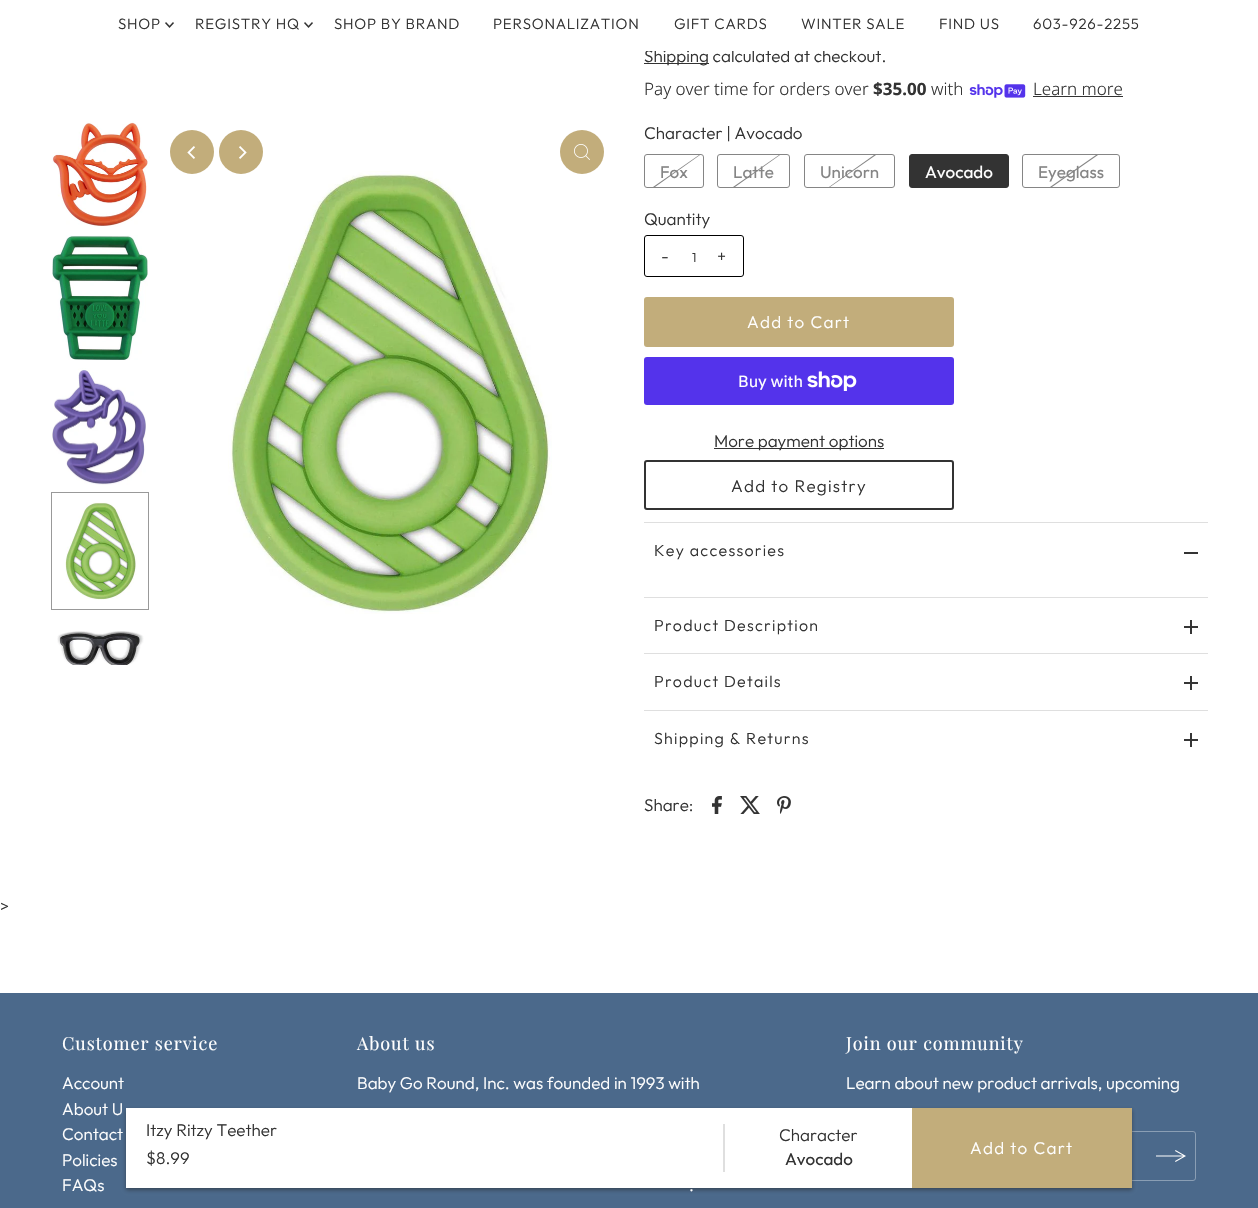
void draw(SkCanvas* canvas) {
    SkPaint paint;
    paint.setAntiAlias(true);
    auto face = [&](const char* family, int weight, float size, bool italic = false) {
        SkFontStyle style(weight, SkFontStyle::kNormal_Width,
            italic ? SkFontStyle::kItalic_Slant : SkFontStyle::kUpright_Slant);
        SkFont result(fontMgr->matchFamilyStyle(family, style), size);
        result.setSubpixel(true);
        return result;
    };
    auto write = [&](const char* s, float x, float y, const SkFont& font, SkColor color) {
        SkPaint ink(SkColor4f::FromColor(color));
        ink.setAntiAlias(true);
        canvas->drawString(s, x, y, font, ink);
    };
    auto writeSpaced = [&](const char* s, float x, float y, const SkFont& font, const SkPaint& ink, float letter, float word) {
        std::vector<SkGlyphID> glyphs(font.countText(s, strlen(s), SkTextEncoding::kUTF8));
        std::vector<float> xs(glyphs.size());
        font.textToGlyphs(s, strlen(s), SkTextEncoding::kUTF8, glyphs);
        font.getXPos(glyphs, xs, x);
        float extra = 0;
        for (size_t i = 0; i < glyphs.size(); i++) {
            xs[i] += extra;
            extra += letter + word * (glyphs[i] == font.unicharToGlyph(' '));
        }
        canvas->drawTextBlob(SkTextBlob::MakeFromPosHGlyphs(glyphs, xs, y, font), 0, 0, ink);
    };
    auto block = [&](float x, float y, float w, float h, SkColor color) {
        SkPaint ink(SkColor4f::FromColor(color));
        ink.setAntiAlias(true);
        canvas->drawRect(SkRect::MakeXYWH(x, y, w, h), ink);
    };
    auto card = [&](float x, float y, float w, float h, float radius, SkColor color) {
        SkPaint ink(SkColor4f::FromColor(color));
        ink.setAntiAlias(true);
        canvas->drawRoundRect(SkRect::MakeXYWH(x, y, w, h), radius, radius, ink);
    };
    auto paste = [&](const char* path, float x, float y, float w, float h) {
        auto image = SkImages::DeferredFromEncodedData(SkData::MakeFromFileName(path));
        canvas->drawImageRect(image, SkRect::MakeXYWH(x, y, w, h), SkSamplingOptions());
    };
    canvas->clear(SK_ColorWHITE);
    block(644, 63, 65, 1, SkColorSetRGB(51, 51, 51));
    auto kFont1 = face("Outfit", 300, 17);
    write("Shipping calculated at checkout.", 644, 62, kFont1, SkColorSetRGB(51, 51, 51));
    block(646, 49, 233, 2, SK_ColorWHITE);
    auto kFont2 = face("Outfit", 300, 15);
    paint.setColor(SkColorSetRGB(51, 51, 51));
    writeSpaced("SHOP", 118, 29, kFont2, paint, 0.75f, 0);
    paste("pic1.png", 165, 22, 9, 6);
    writeSpaced("REGISTRY HQ", 195, 29, kFont2, paint, 0.75f, 0);
    paste("pic1.png", 304, 22, 9, 6);
    writeSpaced("SHOP BY BRAND", 334, 29, kFont2, paint, 0.75f, 0);
    writeSpaced("PERSONALIZATION", 493, 29, kFont2, paint, 0.75f, 0);
    writeSpaced("GIFT CARDS", 674, 29, kFont2, paint, 0.75f, 0);
    writeSpaced("WINTER SALE", 801, 29, kFont2, paint, 0.75f, 0);
    writeSpaced("FIND US", 939, 29, kFont2, paint, 0.75f, 0);
    writeSpaced("603-926-2255", 1033, 29, kFont2, paint, 0.75f, 0);
    write(">", 0, 912, kFont1, SkColorSetRGB(51, 51, 51));
    paste("pic2.png", 52, 121, 98, 106);
    paste("pic3.png", 52, 235, 96, 125);
    paste("pic4.png", 52, 368, 94, 117);
    paste("pic5.png", 65, 502, 72, 98);
    paint.setStyle(SkPaint::kStroke_Style);
    paint.setStrokeWidth(1);
    paint.setColor(SkColorSetRGB(153, 153, 153));
    canvas->drawRect(SkRect::MakeXYWH(51.5f, 492.5f, 97, 117), paint);
    paste("pic6.png", 57, 631, 87, 34);
    paint.setStyle(SkPaint::kFill_Style);
    paint.setColor(SkColorSetRGB(194, 173, 123));
    canvas->drawCircle(192, 152, 22, paint);
    paste("pic7.png", 187, 146, 8, 13);
    paste("pic10.png", 228, 171, 324, 443);
    canvas->drawCircle(241, 152, 22, paint);
    paste("pic8.png", 239, 146, 8, 13);
    canvas->drawCircle(582, 152, 22, paint);
    paste("pic9.png", 574, 144, 16, 16);
    auto kFont3 = face("Noto Sans", 300, 17);
    write("Pay over time for orders over", 644, 95, kFont3, SkColorSetRGB(51, 51, 51));
    auto kFont4 = face("Noto Sans", 700, 17);
    write("$35.00", 873, 95, kFont4, SkColorSetRGB(51, 51, 51));
    write("with", 931, 95, kFont3, SkColorSetRGB(51, 51, 51));
    paste("pic11.png", 969, 84, 57, 14);
    write("Learn more", 1033, 95, kFont3, SkColorSetRGB(51, 51, 51));
    block(1033, 96, 90, 1, SkColorSetRGB(51, 51, 51));
    write("Character | Avocado", 644, 139, kFont1, SkColorSetRGB(51, 51, 51));
    paint.setStyle(SkPaint::kStroke_Style);
    paint.setColor(SkColorSetRGB(133, 133, 133));
    canvas->drawRoundRect(SkRect::MakeXYWH(644.5f, 154.5f, 59, 33), 2.5f, 2.5f, paint);
    paint.setStyle(SkPaint::kFill_Style);
    canvas->drawPath(SkPathBuilder().moveTo(653, 187).lineTo(699, 155).lineTo(700, 155).lineTo(655, 187).close().detach(), paint);
    auto kFont5 = face("Outfit", 400, 17);
    write("Fox", 660, 178, kFont5, SkColorSetRGB(133, 133, 133));
    paint.setStyle(SkPaint::kStroke_Style);
    canvas->drawRoundRect(SkRect::MakeXYWH(717.5f, 154.5f, 72, 33), 2.5f, 2.5f, paint);
    paint.setStyle(SkPaint::kFill_Style);
    canvas->drawPath(SkPathBuilder().moveTo(733, 187).lineTo(779, 155).lineTo(780, 155).lineTo(735, 187).close().detach(), paint);
    write("Latte", 733, 178, kFont5, SkColorSetRGB(133, 133, 133));
    paint.setStyle(SkPaint::kStroke_Style);
    canvas->drawRoundRect(SkRect::MakeXYWH(804.5f, 154.5f, 90, 33), 2.5f, 2.5f, paint);
    paint.setStyle(SkPaint::kFill_Style);
    canvas->drawPath(SkPathBuilder().moveTo(829, 187).lineTo(874, 155).lineTo(876, 155).lineTo(830, 187).close().detach(), paint);
    write("Unicorn", 820, 178, kFont5, SkColorSetRGB(133, 133, 133));
    paint.setColor(SkColorSetRGB(51, 51, 51));
    canvas->drawRoundRect(SkRect::MakeXYWH(909.5f, 154.5f, 99, 33), 2.5f, 2.5f, paint);
    paint.setStyle(SkPaint::kStroke_Style);
    canvas->drawRoundRect(SkRect::MakeXYWH(909.5f, 154.5f, 99, 33), 2.5f, 2.5f, paint);
    write("Avocado", 925, 178, kFont5, SK_ColorWHITE);
    paint.setColor(SkColorSetRGB(133, 133, 133));
    canvas->drawRoundRect(SkRect::MakeXYWH(1022.5f, 154.5f, 97, 33), 2.5f, 2.5f, paint);
    paint.setStyle(SkPaint::kFill_Style);
    canvas->drawPath(SkPathBuilder().moveTo(1050, 187).lineTo(1096, 155).lineTo(1098, 155).lineTo(1052, 187).close().detach(), paint);
    write("Eyeglass", 1038, 178, kFont5, SkColorSetRGB(133, 133, 133));
    write("Quantity", 644, 225, kFont1, SkColorSetRGB(51, 51, 51));
    paint.setStyle(SkPaint::kStroke_Style);
    paint.setColor(SK_ColorBLACK);
    canvas->drawRoundRect(SkRect::MakeXYWH(644.5f, 235.5f, 99, 41), 2.5f, 2.5f, paint);
    paint.setStyle(SkPaint::kFill_Style);
    paint.setColor(SkColorSetRGB(51, 51, 51));
    writeSpaced("-", 661, 262, kFont1, paint, 1.25f, 0);
    auto kFont6 = face("Outfit", 300, 13);
    write("1", 692, 262, kFont6, SkColorSetRGB(51, 51, 51));
    writeSpaced("+", 717, 262, kFont1, paint, 1.25f, 0);
    card(644, 297, 310, 50, 3, SkColorSetRGB(194, 173, 123));
    paint.setColor(SK_ColorWHITE);
    writeSpaced("Add to Cart", 747, 328, kFont1, paint, 1.25f, 0);
    card(644, 357, 310, 48, 3, SkColorSetRGB(84, 51, 235));
    auto kFont7 = face("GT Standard", 400, 16);
    write("Buy with", 738, 387, kFont7, SK_ColorWHITE);
    paste("pic12.png", 807, 371, 50, 20);
    block(714, 448, 170, 1, SkColorSetRGB(51, 51, 51));
    write("More payment options", 714, 447, kFont1, SkColorSetRGB(51, 51, 51));
    paint.setStyle(SkPaint::kStroke_Style);
    paint.setStrokeWidth(2);
    paint.setColor(SkColorSetRGB(51, 51, 51));
    canvas->drawRoundRect(SkRect::MakeXYWH(645, 461, 308, 48), 2, 2, paint);
    paint.setStyle(SkPaint::kFill_Style);
    writeSpaced("Add to Registry", 731, 492, kFont1, paint, 1.25f, 0);
    block(644, 522, 564, 1, SkColorSetRGB(223, 223, 223));
    auto kFont8 = face("Outfit", 300, 16);
    writeSpaced("Key accessories", 654, 556, kFont8, paint, 1.25f, 0);
    block(1184, 552, 14, 2, SkColorSetRGB(51, 51, 51));
    block(644, 597, 564, 1, SkColorSetRGB(223, 223, 223));
    writeSpaced("Product Description", 654, 631, kFont8, paint, 1.25f, 0);
    paste("pic13.png", 1184, 620, 14, 14);
    block(644, 653, 564, 1, SkColorSetRGB(223, 223, 223));
    writeSpaced("Product Details", 654, 687, kFont8, paint, 1.25f, 0);
    paste("pic13.png", 1184, 676, 14, 14);
    block(644, 710, 564, 1, SkColorSetRGB(223, 223, 223));
    writeSpaced("Shipping & Returns", 654, 744, kFont8, paint, 1.25f, 0);
    paste("pic13.png", 1184, 733, 14, 14);
    write("Share:", 644, 811, kFont1, SkColorSetRGB(51, 51, 51));
    paste("pic14.png", 712, 796, 10, 18);
    paste("pic15.png", 740, 796, 20, 18);
    paste("pic16.png", 777, 796, 14, 18);
    block(0, 993, 1258, 215, SkColorSetRGB(75, 105, 139));
    paint.setStyle(SkPaint::kStroke_Style);
    paint.setStrokeWidth(1);
    paint.setColor(SkColorSetRGB(138, 158, 180));
    canvas->drawRoundRect(SkRect::MakeXYWH(846.5f, 1131.5f, 349, 49), 2.5f, 2.5f, paint);
    paint.setStyle(SkPaint::kFill_Style);
    paint.setColor(SkColorSetARGB(128, 34, 34, 34));
    paint.setMaskFilter(SkMaskFilter::MakeBlur(kNormal_SkBlurStyle, 2));
    canvas->drawRect(SkRect::MakeXYWH(126, 1110, 1006, 80), paint);
    paint.setMaskFilter(nullptr);
    block(126, 1108, 786, 80, SK_ColorWHITE);
    write("Itzy Ritzy Teether", 146, 1136, kFont1, SkColorSetRGB(51, 51, 51));
    write("$8.99", 146, 1164, kFont1, SkColorSetRGB(51, 51, 51));
    block(723, 1124, 2, 48, SkColorSetRGB(223, 223, 223));
    write("Character", 779, 1141, kFont1, SkColorSetRGB(51, 51, 51));
    write("Avocado", 785, 1165, kFont5, SkColorSetRGB(51, 51, 51));
    block(912, 1108, 220, 80, SkColorSetRGB(194, 173, 123));
    paint.setColor(SK_ColorWHITE);
    writeSpaced("Add to Cart", 970, 1154, kFont1, paint, 1.25f, 0);
    auto kFont9 = face("Playfair Display", 400, 18);
    writeSpaced("Customer service", 62, 1050, kFont9, paint, 0.9f, 0);
    write("Account", 62, 1089, kFont1, SK_ColorWHITE);
    write("About U", 62, 1115, kFont1, SK_ColorWHITE);
    write("Contact", 62, 1140, kFont1, SK_ColorWHITE);
    write("Policies", 62, 1166, kFont1, SK_ColorWHITE);
    write("FAQs", 62, 1191, kFont1, SK_ColorWHITE);
    writeSpaced("About us", 357, 1050, kFont9, paint, 0.9f, 0);
    write("Baby Go Round, Inc. was founded in 1993 with", 357, 1089, kFont1, SK_ColorWHITE);
    write(".", 689, 1191, kFont1, SK_ColorWHITE);
    writeSpaced("Join our community", 846, 1050, kFont9, paint, 0.9f, 0);
    write("Learn about new product arrivals, upcoming", 846, 1089, kFont1, SK_ColorWHITE);
    canvas->drawPath(SkPathBuilder().moveTo(1175.5f, 1150).lineTo(1186, 1156).lineTo(1175.5f, 1162).lineTo(1175, 1161).lineTo(1183, 1156.5f).lineTo(1156, 1156.5f).lineTo(1156, 1155.5f).lineTo(1183, 1155.5f).lineTo(1175, 1151).close().detach(), paint);
}
